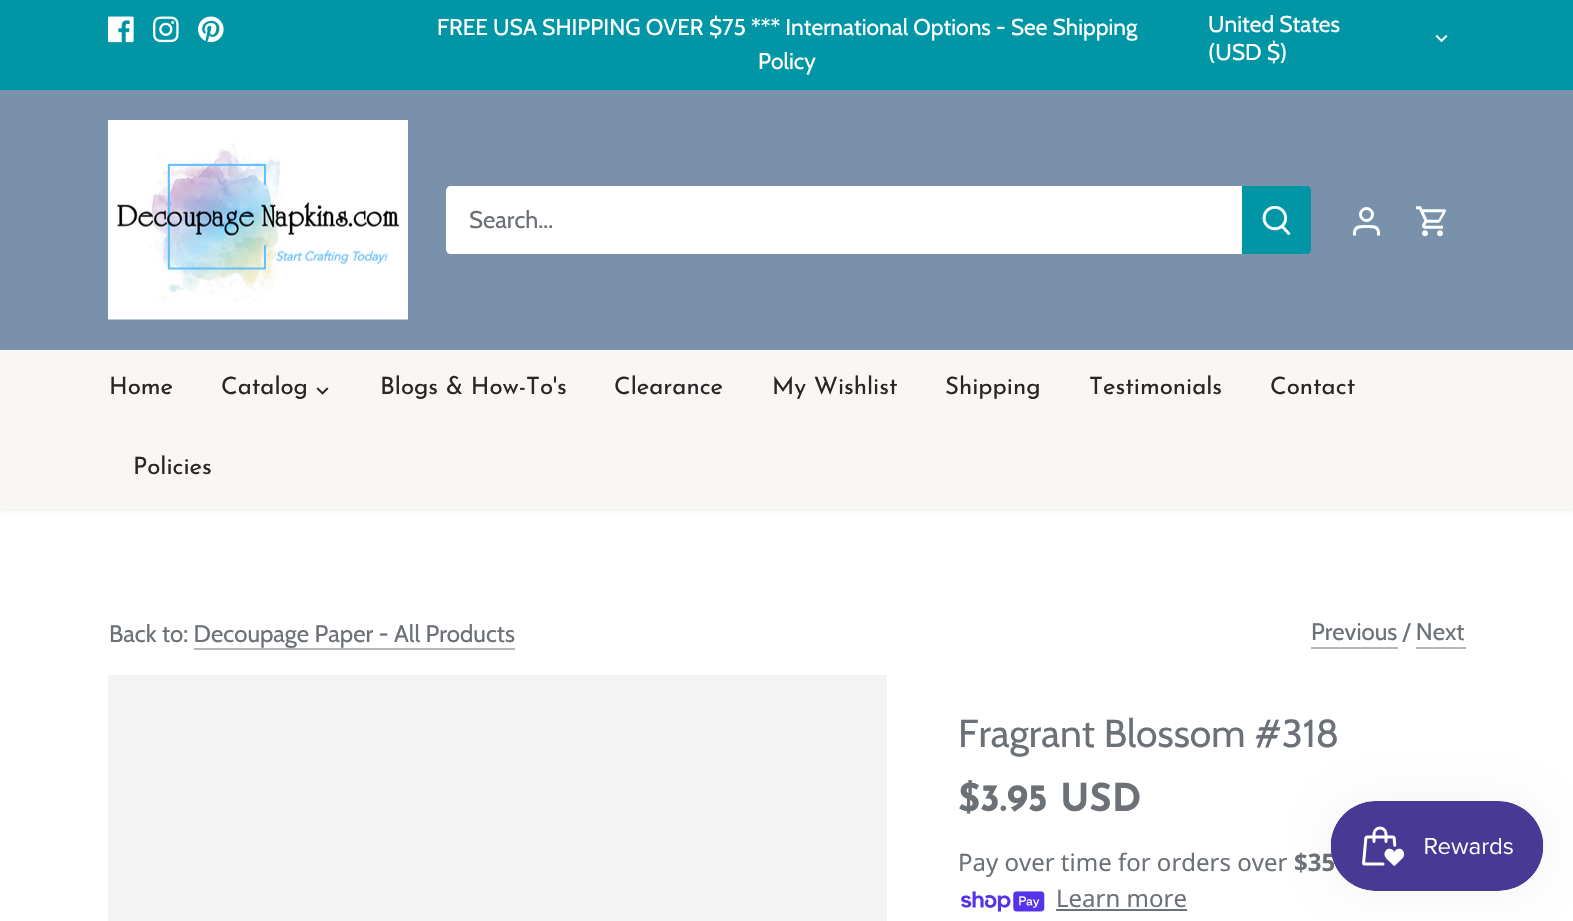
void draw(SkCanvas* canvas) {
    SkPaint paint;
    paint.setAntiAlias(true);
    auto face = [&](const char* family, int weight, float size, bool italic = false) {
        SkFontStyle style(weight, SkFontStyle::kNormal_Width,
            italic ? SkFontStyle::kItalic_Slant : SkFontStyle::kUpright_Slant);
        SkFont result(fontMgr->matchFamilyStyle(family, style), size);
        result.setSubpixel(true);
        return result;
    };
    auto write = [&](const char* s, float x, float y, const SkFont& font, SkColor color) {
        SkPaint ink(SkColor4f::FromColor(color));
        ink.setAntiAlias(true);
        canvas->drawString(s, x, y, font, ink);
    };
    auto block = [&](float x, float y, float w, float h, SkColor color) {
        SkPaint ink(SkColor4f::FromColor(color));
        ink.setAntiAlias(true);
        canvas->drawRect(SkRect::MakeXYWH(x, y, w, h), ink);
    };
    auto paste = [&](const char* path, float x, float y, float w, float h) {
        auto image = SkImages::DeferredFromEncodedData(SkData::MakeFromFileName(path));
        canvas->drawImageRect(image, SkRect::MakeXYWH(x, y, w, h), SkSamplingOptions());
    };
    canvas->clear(SK_ColorWHITE);
    paint.setColor(SkColorSetARGB(20, 0, 0, 0));
    paint.setMaskFilter(SkMaskFilter::MakeBlur(kNormal_SkBlurStyle, 2));
    canvas->drawRect(SkRect::MakeXYWH(-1, 89, 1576, 421), paint);
    paint.setMaskFilter(nullptr);
    block(0, 0, 1573, 90, SkColorSetRGB(0, 150, 166));
    paste("pic1.png", 108, 16, 26, 27);
    paste("pic2.png", 153, 16, 26, 27);
    paste("pic3.png", 198, 16, 26, 27);
    auto kFont1 = face("Cabin", 400, 22.8f);
    write("FREE USA SHIPPING OVER $75 *** International Options - See Shipping", 437, 35, kFont1, SK_ColorWHITE);
    write("Policy", 758, 69, kFont1, SK_ColorWHITE);
    write("United States", 1208, 32, kFont1, SK_ColorWHITE);
    paste("pic4.png", 1435, 34, 13, 9);
    write("(USD $)", 1208, 60, kFont1, SK_ColorWHITE);
    block(0, 350, 1573, 159, SkColorSetRGB(249, 247, 244));
    block(0, 90, 1573, 260, SkColorSetRGB(122, 145, 171));
    paste("pic5.png", 108, 120, 300, 200);
    paint.setColor(SK_ColorWHITE);
    canvas->drawPath(SkPathBuilder().moveTo(451, 186).lineTo(1244, 186).lineTo(1244, 254).lineTo(451, 254).cubicTo(448, 254, 446, 252, 446, 249).lineTo(446, 191).cubicTo(446, 188, 448, 186, 451, 186).close().detach(), paint);
    auto kFont2 = face("Cabin", 400, 24);
    write("Search...", 469, 228, kFont2, SkColorSetRGB(107, 113, 119));
    paint.setColor(SkColorSetRGB(0, 150, 166));
    canvas->drawPath(SkPathBuilder().moveTo(1242, 186).lineTo(1306, 186).cubicTo(1309, 186, 1311, 188, 1311, 191).lineTo(1311, 249).cubicTo(1311, 252, 1309, 254, 1306, 254).lineTo(1242, 254).close().detach(), paint);
    paste("pic6.png", 1262, 206, 29, 30);
    paint.setStyle(SkPaint::kStroke_Style);
    paint.setStrokeWidth(3);
    paint.setColor(SK_ColorWHITE);
    canvas->drawCircle(1366.5f, 214.5f, 6, paint);
    canvas->drawPath(SkPathBuilder().moveTo(1378.5f, 235.5f).lineTo(1378.5f, 231.5f).cubicTo(1377, 225.5f, 1371, 226.5f, 1366.5f, 226.5f).cubicTo(1362, 226.5f, 1356, 225.5f, 1354.5f, 231.5f).lineTo(1354.5f, 235.5f).detach(), paint);
    paste("pic7.png", 1416, 206, 30, 31);
    auto kFont3 = face("Josefin Sans", 400, 24);
    write("Home", 109, 394, kFont3, SkColorSetRGB(44, 37, 40));
    write("Catalog", 221, 394, kFont3, SkColorSetRGB(44, 37, 40));
    paste("pic8.png", 316, 387, 13, 8);
    write("Blogs & How-To's", 380, 394, kFont3, SkColorSetRGB(44, 37, 40));
    write("Clearance", 614, 394, kFont3, SkColorSetRGB(44, 37, 40));
    write("My Wishlist", 772, 394, kFont3, SkColorSetRGB(44, 37, 40));
    write("Shipping", 945, 394, kFont3, SkColorSetRGB(44, 37, 40));
    write("Testimonials", 1089, 394, kFont3, SkColorSetRGB(44, 37, 40));
    write("Contact", 1270, 394, kFont3, SkColorSetRGB(44, 37, 40));
    write("Policies", 133, 474, kFont3, SkColorSetRGB(44, 37, 40));
    write("Back to: Decoupage Paper - All Products", 109, 642, kFont2, SkColorSetRGB(107, 113, 119));
    block(194, 648, 321, 2, SkColorSetRGB(181, 184, 187));
    write("Previous / Next", 1311, 640, kFont2, SkColorSetRGB(107, 113, 119));
    block(1311, 647, 87, 2, SkColorSetRGB(181, 184, 187));
    block(1416, 647, 50, 2, SkColorSetRGB(181, 184, 187));
    block(108, 675, 779, 246, SkColorSetRGB(243, 243, 243));
    auto kFont4 = face("Cabin", 400, 39);
    write("Fragrant Blossom #318", 958, 747, kFont4, SkColorSetRGB(107, 113, 119));
    auto kFont5 = face("Josefin Sans", 700, 38.5f);
    write("$3.95 USD", 958, 811, kFont5, SkColorSetRGB(107, 113, 119));
    auto kFont6 = face("Noto Sans", 400, 24);
    write("Pay over time for orders over", 958, 871, kFont6, SkColorSetRGB(107, 113, 119));
    auto kFont7 = face("Noto Sans", 700, 24);
    write("$35", 1294, 871, kFont7, SkColorSetRGB(107, 113, 119));
    paste("pic9.png", 961, 891, 84, 21);
    write("Learn more", 1056, 907, kFont6, SkColorSetRGB(107, 113, 119));
    block(1056, 909, 131, 2, SkColorSetRGB(107, 113, 119));
    paint.setStyle(SkPaint::kFill_Style);
    paint.setColor(SkColorSetARGB(13, 0, 0, 0));
    paint.setMaskFilter(SkMaskFilter::MakeBlur(kNormal_SkBlurStyle, 19));
    canvas->drawRoundRect(SkRect::MakeXYWH(1331, 801, 213, 90), 45, 45, paint);
    paint.setMaskFilter(nullptr);
    paste("pic10.png", 1330, 801, 214, 90);
}
